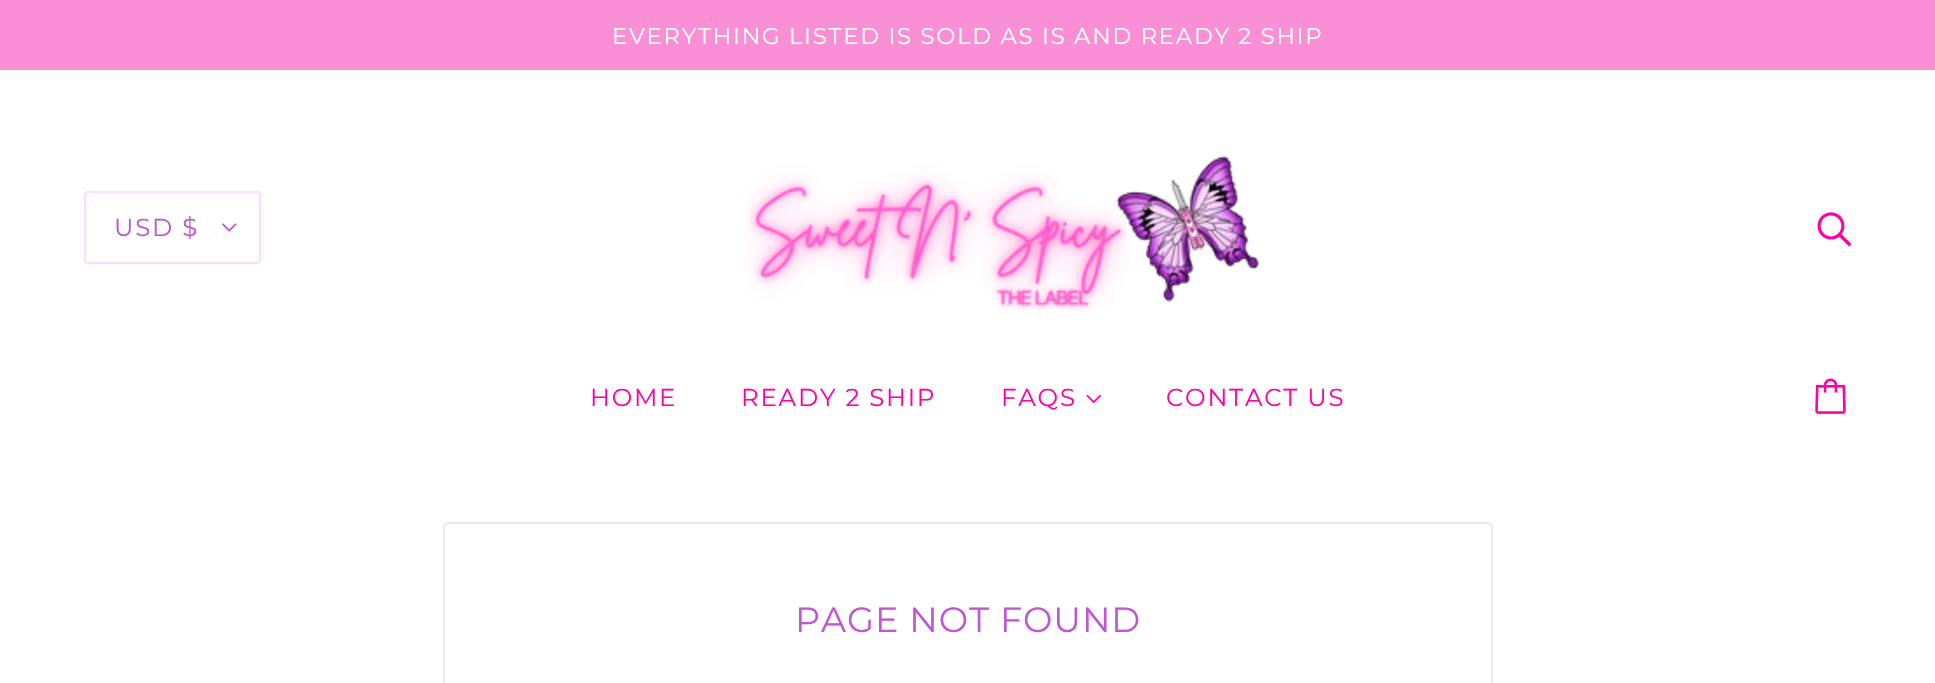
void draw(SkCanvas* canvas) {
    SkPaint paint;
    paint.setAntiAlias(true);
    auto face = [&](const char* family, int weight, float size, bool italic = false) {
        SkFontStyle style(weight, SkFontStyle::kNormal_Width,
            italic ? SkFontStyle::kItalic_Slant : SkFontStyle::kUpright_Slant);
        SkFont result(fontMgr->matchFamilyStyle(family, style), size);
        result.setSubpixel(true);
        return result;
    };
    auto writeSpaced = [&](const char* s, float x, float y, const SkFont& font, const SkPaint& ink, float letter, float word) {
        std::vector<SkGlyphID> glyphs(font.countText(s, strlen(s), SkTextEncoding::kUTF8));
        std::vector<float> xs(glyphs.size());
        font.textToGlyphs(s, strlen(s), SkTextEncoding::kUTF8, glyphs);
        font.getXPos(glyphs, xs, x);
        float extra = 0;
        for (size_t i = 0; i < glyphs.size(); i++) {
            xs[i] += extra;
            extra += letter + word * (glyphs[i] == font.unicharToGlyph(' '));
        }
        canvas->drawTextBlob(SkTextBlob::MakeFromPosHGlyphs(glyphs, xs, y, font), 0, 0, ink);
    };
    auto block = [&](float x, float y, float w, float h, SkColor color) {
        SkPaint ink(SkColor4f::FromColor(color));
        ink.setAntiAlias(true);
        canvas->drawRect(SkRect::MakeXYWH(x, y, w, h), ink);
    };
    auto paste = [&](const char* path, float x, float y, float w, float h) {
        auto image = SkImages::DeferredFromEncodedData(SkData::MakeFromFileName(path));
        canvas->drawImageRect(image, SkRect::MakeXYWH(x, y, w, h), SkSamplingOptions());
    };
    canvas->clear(SK_ColorWHITE);
    block(0, 0, 1935, 70, SkColorSetRGB(249, 143, 212));
    auto kFont1 = face("Montserrat", 400, 22.75f);
    paint.setColor(SK_ColorWHITE);
    writeSpaced("EVERYTHING LISTED IS SOLD AS IS AND READY 2 SHIP", 612, 44, kFont1, paint, 1.75f, 0);
    paint.setStyle(SkPaint::kStroke_Style);
    paint.setStrokeWidth(2);
    paint.setColor(SkColorSetRGB(255, 219, 255));
    canvas->drawRoundRect(SkRect::MakeXYWH(85, 192, 175, 71), 3, 3, paint);
    auto kFont2 = face("Montserrat", 400, 24.5f);
    paint.setStyle(SkPaint::kFill_Style);
    paint.setColor(SkColorSetRGB(191, 86, 213));
    writeSpaced("USD $", 114, 236, kFont2, paint, 1.75f, 0);
    paste("pic1.png", 221, 223, 16, 9);
    paste("pic2.png", 745, 155, 514, 157);
    paste("pic3.png", 1817, 212, 35, 35);
    paint.setColor(SkColorSetRGB(255, 0, 168));
    writeSpaced("HOME", 590, 406, kFont2, paint, 1.75f, 0);
    writeSpaced("READY 2 SHIP", 741, 406, kFont2, paint, 1.75f, 0);
    writeSpaced("FAQS", 1001, 406, kFont2, paint, 1.75f, 0);
    paste("pic4.png", 1086, 394, 16, 10);
    writeSpaced("CONTACT US", 1166, 406, kFont2, paint, 1.75f, 0);
    paste("pic5.png", 1815, 378, 31, 36);
    paint.setStyle(SkPaint::kStroke_Style);
    paint.setColor(SkColorSetRGB(234, 234, 234));
    canvas->drawRoundRect(SkRect::MakeXYWH(444, 523, 1048, 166), 4, 4, paint);
    auto kFont3 = face("Montserrat", 400, 35);
    paint.setStyle(SkPaint::kFill_Style);
    paint.setColor(SkColorSetRGB(191, 86, 213));
    writeSpaced("PAGE NOT FOUND", 795, 632, kFont3, paint, 0.9f, 0);
}
